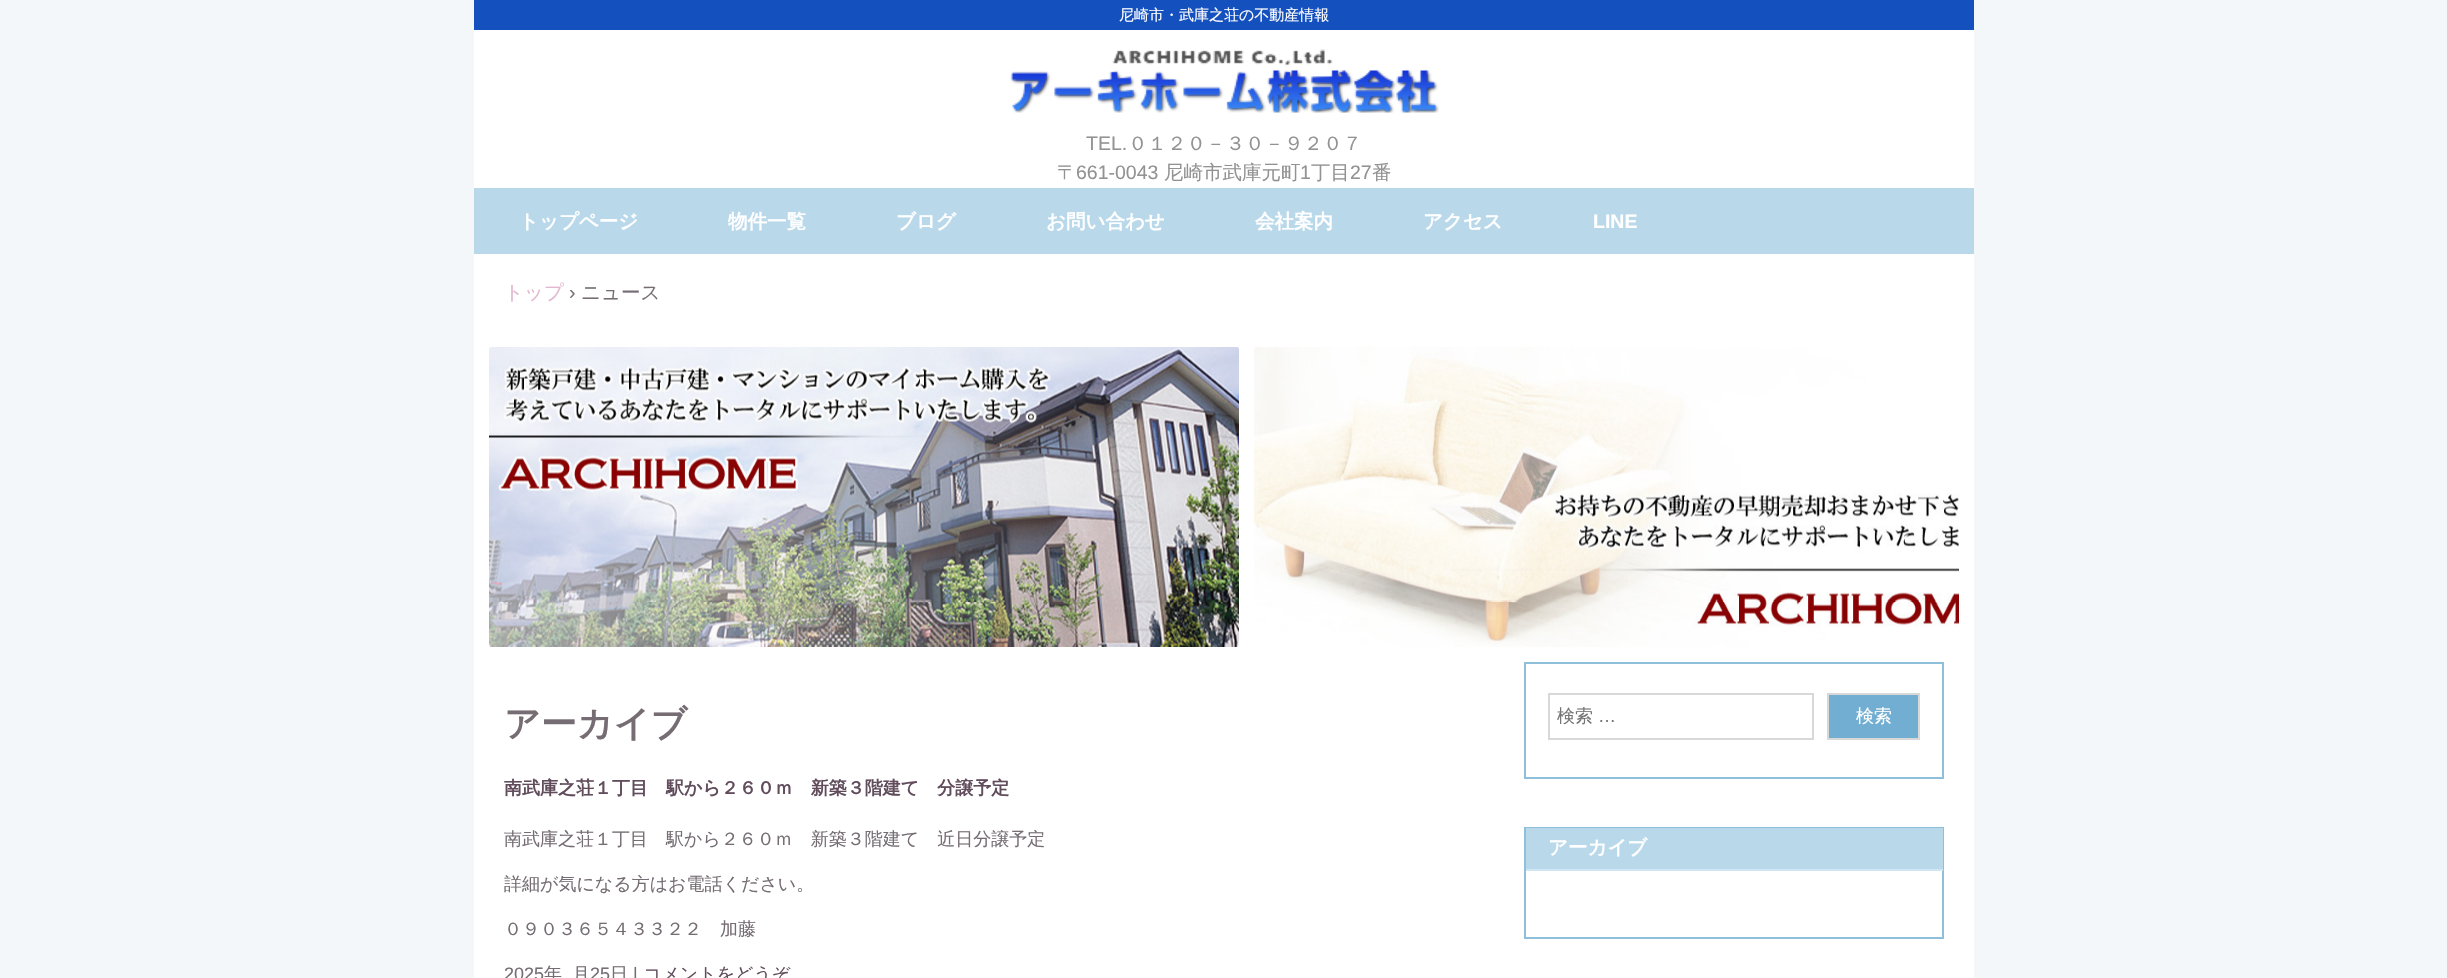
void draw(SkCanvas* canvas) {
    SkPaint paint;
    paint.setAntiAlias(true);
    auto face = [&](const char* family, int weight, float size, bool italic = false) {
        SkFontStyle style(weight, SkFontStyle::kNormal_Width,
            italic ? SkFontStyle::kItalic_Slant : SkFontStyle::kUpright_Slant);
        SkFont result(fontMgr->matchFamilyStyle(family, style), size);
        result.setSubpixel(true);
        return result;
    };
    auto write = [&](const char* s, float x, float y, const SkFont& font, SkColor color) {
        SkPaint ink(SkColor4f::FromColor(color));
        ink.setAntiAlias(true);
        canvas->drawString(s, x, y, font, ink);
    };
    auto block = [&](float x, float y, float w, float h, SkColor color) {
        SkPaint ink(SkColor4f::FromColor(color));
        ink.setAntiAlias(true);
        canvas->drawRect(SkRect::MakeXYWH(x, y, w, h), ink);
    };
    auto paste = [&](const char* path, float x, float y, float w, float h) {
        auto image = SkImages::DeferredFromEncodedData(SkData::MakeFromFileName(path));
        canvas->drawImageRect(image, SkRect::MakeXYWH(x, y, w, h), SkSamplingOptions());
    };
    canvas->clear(SkColorSetRGB(243, 247, 249));
    block(474, 30, 1500, 158, SK_ColorWHITE);
    block(474, 0, 1500, 30, SkColorSetRGB(21, 80, 191));
    auto kFont1 = face("WenQuanYi Zen Hei", 500, 15);
    write("尼崎市・武庫之荘の不動産情報", 1119, 20, kFont1, SK_ColorWHITE);
    paste("pic1.png", 1010, 49, 429, 64);
    auto kFont2 = face("Liberation Sans", 400, 19.5f);
    write("TEL.", 1086, 150, kFont2, SkColorSetRGB(146, 146, 146));
    auto kFont3 = face("WenQuanYi Zen Hei", 500, 19.5f);
    write("０１２０－３０－９２０７", 1128, 150, kFont3, SkColorSetRGB(146, 146, 146));
    write("〒", 1057, 179, kFont3, SkColorSetRGB(146, 146, 146));
    write("661-0043", 1076, 179, kFont2, SkColorSetRGB(146, 146, 146));
    write("尼崎市武庫元町", 1164, 179, kFont3, SkColorSetRGB(146, 146, 146));
    write("1", 1300, 179, kFont2, SkColorSetRGB(146, 146, 146));
    write("丁目", 1311, 179, kFont3, SkColorSetRGB(146, 146, 146));
    write("27", 1350, 179, kFont2, SkColorSetRGB(146, 146, 146));
    write("番", 1372, 179, kFont3, SkColorSetRGB(146, 146, 146));
    block(474, 254, 1500, 724, SK_ColorWHITE);
    block(474, 188, 1500, 66, SkColorSetRGB(185, 217, 235));
    auto kFont4 = face("WenQuanYi Zen Hei", 700, 19.5f);
    write("トップページ", 519, 228, kFont4, SK_ColorWHITE);
    write("物件一覧", 728, 228, kFont4, SK_ColorWHITE);
    write("ブログ", 896, 228, kFont4, SK_ColorWHITE);
    write("お問い合わせ", 1046, 228, kFont4, SK_ColorWHITE);
    write("会社案内", 1255, 228, kFont4, SK_ColorWHITE);
    write("アクセス", 1423, 228, kFont4, SK_ColorWHITE);
    auto kFont5 = face("Liberation Sans", 700, 19.5f);
    write("LINE", 1593, 228, kFont5, SK_ColorWHITE);
    write("トップ", 504, 299, kFont3, SkColorSetRGB(227, 183, 207));
    write("›", 569, 299, kFont2, SkColorSetRGB(117, 109, 115));
    write("ニュース", 581, 299, kFont3, SkColorSetRGB(117, 109, 115));
    paste("pic2.png", 489, 347, 750, 300);
    paste("pic3.png", 1254, 347, 705, 300);
    auto kFont6 = face("WenQuanYi Zen Hei", 700, 36);
    write("アーカイブ", 504, 736, kFont6, SkColorSetRGB(117, 109, 115));
    auto kFont7 = face("WenQuanYi Zen Hei", 700, 18);
    write("南武庫之荘１丁目　駅から２６０ｍ　新築３階建て　分譲予定", 504, 794, kFont7, SkColorSetRGB(97, 76, 92));
    auto kFont8 = face("WenQuanYi Zen Hei", 500, 18);
    write("南武庫之荘１丁目　駅から２６０ｍ　新築３階建て　近日分譲予定", 504, 845, kFont8, SkColorSetRGB(117, 109, 115));
    write("詳細が気になる方はお電話ください。", 504, 890, kFont8, SkColorSetRGB(117, 109, 115));
    write("０９０３６５４３３２２　加藤", 504, 935, kFont8, SkColorSetRGB(117, 109, 115));
    auto kFont9 = face("Liberation Sans", 400, 18);
    write("2025", 504, 980, kFont9, SkColorSetRGB(117, 109, 115));
    write("年", 544, 980, kFont8, SkColorSetRGB(117, 109, 115));
    write("月", 572, 980, kFont8, SkColorSetRGB(117, 109, 115));
    write("25", 590, 980, kFont9, SkColorSetRGB(117, 109, 115));
    write("日", 610, 980, kFont8, SkColorSetRGB(117, 109, 115));
    write("|", 633, 980, kFont9, SkColorSetRGB(117, 109, 115));
    write("コメントをどうぞ", 643, 980, kFont8, SkColorSetRGB(97, 76, 92));
    paint.setStyle(SkPaint::kStroke_Style);
    paint.setStrokeWidth(2);
    paint.setColor(SkColorSetRGB(142, 191, 219));
    canvas->drawRect(SkRect::MakeXYWH(1525, 663, 418, 115), paint);
    paint.setColor(SkColorSetRGB(216, 216, 216));
    canvas->drawRect(SkRect::MakeXYWH(1549, 694, 264, 45), paint);
    write("検索", 1557, 722, kFont8, SkColorSetRGB(117, 117, 117));
    write("…", 1598, 722, kFont9, SkColorSetRGB(117, 117, 117));
    paint.setStyle(SkPaint::kFill_Style);
    paint.setColor(SkColorSetRGB(114, 174, 209));
    canvas->drawRect(SkRect::MakeXYWH(1828, 694, 91, 45), paint);
    paint.setStyle(SkPaint::kStroke_Style);
    paint.setColor(SkColorSetRGB(216, 216, 216));
    canvas->drawRect(SkRect::MakeXYWH(1828, 694, 91, 45), paint);
    write("検索", 1856, 722, kFont8, SK_ColorWHITE);
    paint.setColor(SkColorSetRGB(142, 191, 219));
    canvas->drawRect(SkRect::MakeXYWH(1525, 828, 418, 110), paint);
    block(1526, 828, 417, 41, SkColorSetRGB(185, 217, 235));
    block(1526, 869, 417, 2, SkColorSetRGB(208, 230, 242));
    write("アーカイブ", 1548, 854, kFont4, SK_ColorWHITE);
}
